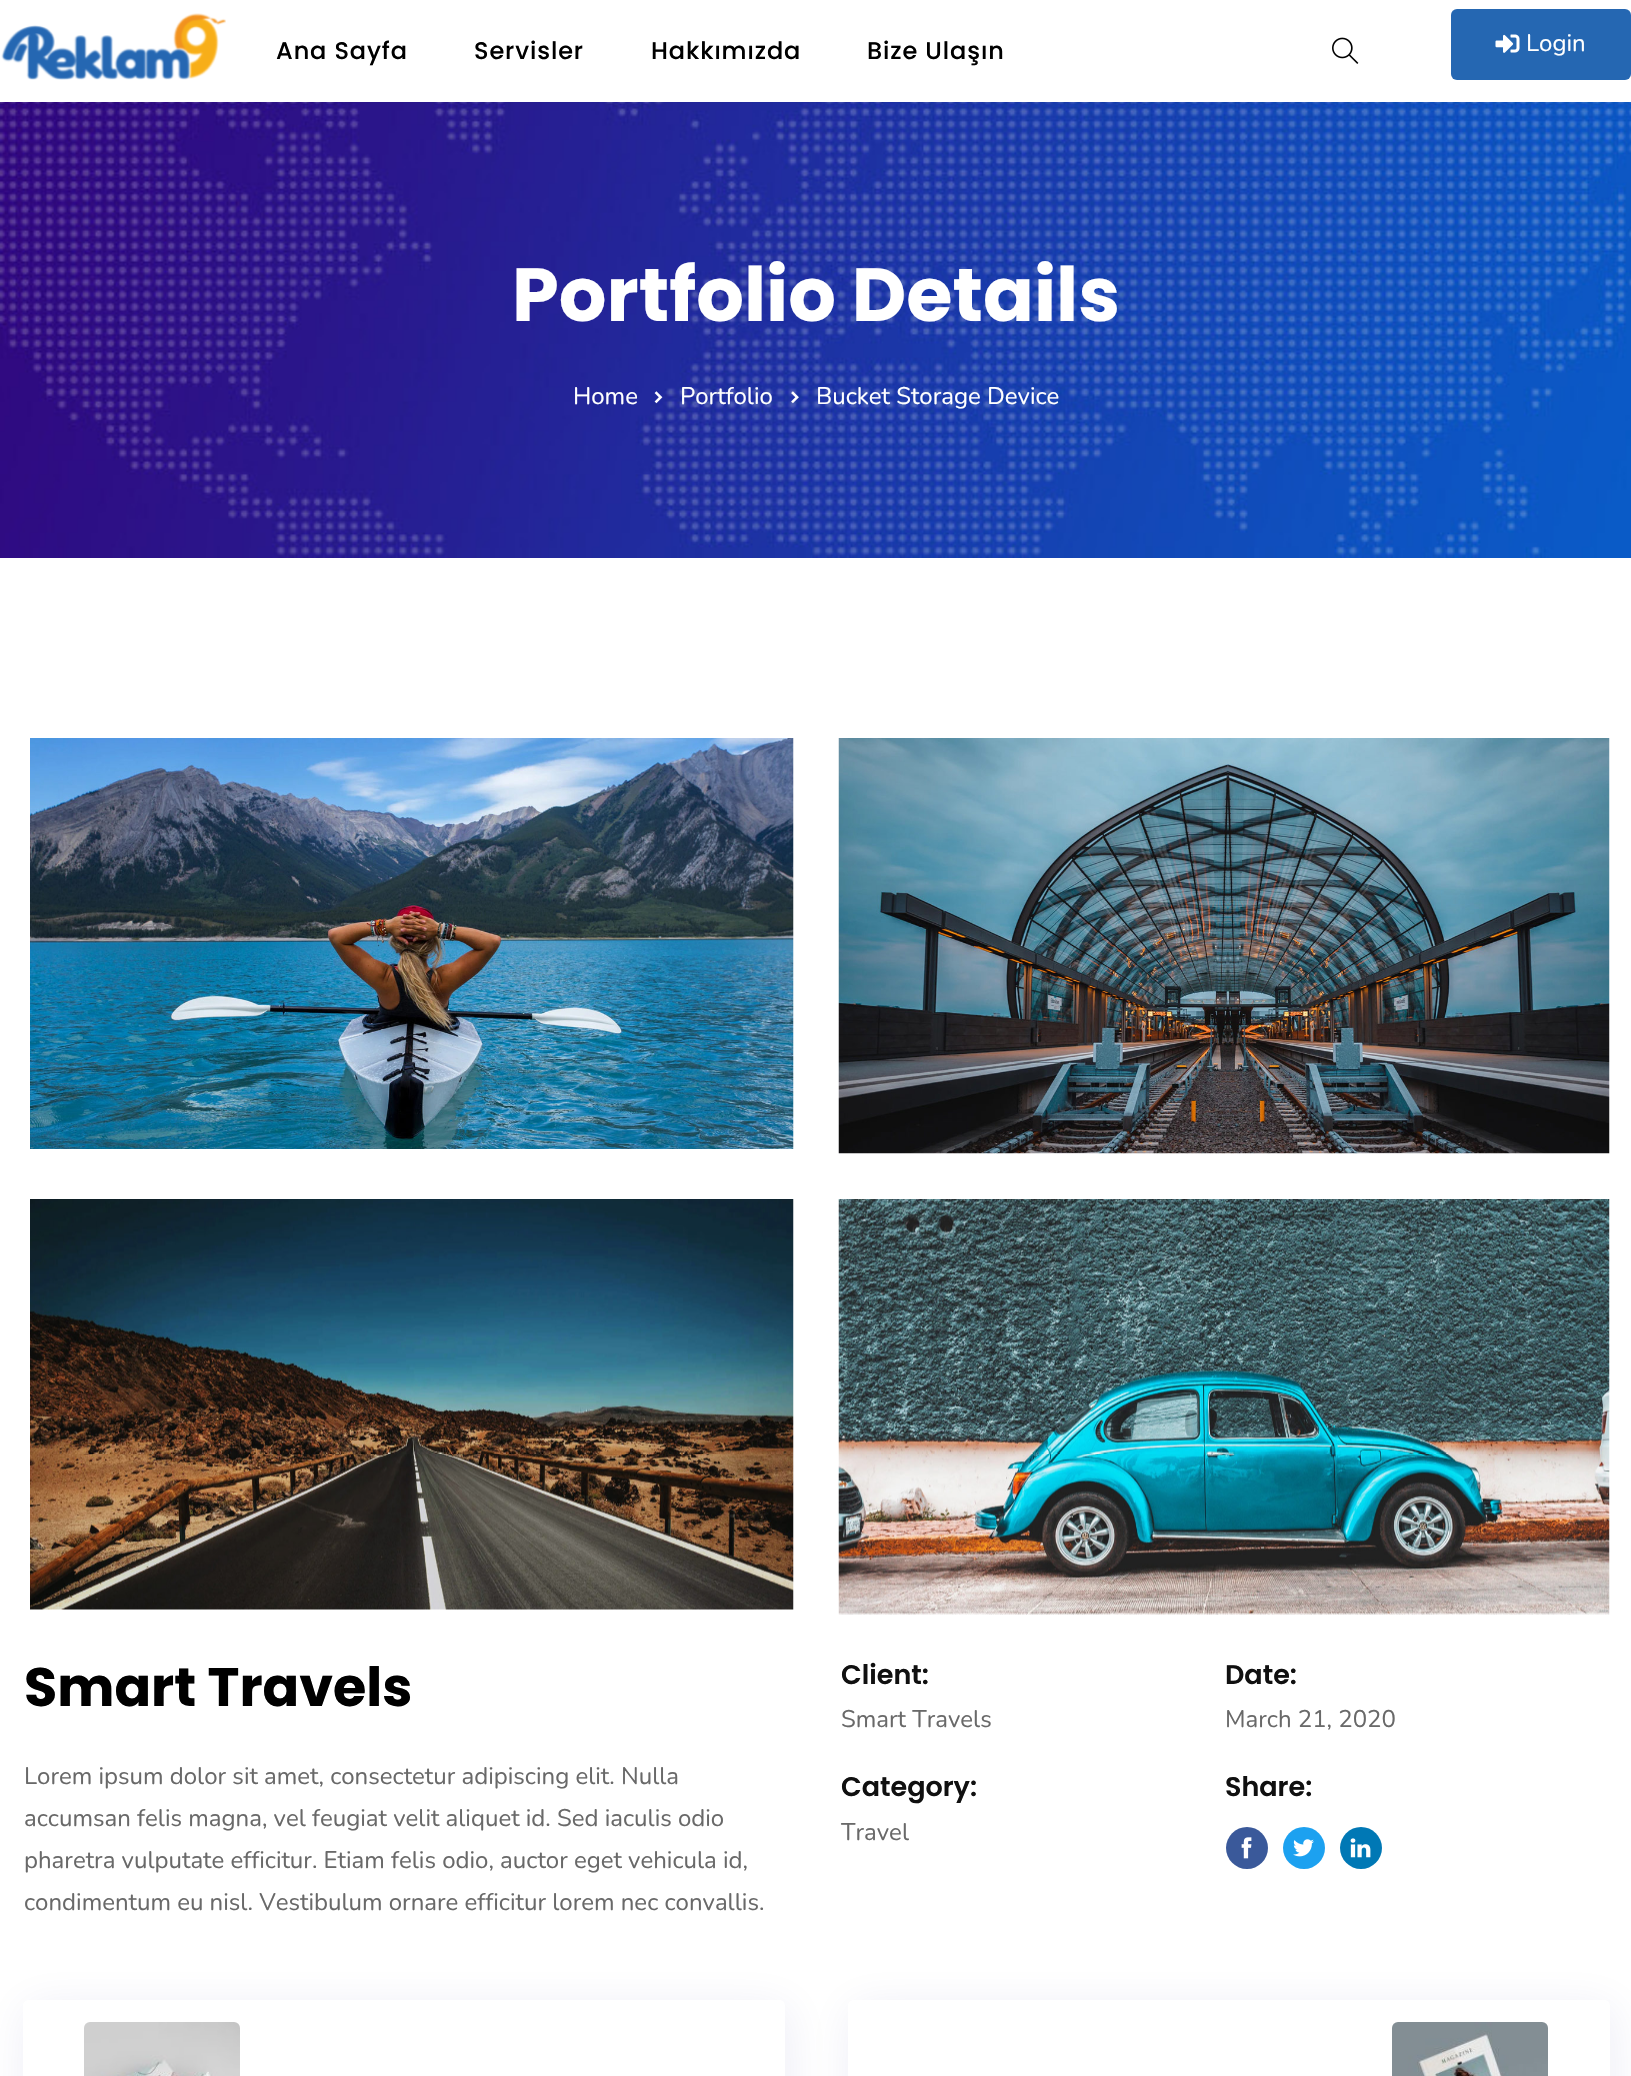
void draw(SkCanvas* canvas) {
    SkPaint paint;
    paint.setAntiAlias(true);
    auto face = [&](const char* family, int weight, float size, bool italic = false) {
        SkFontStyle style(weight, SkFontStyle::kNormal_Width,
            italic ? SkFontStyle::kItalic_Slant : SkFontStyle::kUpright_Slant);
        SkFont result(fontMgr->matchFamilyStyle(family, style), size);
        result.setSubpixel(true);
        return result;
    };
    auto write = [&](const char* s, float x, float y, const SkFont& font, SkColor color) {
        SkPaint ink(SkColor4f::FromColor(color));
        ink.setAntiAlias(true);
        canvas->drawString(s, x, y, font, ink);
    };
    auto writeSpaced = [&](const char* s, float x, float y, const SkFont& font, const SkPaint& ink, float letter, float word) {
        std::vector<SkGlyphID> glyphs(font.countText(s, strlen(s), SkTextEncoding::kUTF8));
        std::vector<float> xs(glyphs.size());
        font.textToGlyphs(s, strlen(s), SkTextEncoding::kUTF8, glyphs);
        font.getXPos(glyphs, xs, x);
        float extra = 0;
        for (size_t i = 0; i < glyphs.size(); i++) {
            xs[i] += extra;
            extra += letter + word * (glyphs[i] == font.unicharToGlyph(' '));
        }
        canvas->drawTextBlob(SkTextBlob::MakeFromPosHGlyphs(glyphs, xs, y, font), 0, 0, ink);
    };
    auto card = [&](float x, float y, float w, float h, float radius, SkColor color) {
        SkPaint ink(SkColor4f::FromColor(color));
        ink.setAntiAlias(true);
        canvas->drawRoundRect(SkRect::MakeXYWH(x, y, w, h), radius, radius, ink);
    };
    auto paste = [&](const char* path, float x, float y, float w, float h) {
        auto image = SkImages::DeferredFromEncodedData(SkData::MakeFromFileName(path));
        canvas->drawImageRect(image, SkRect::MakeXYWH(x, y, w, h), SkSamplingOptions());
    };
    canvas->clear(SK_ColorWHITE);
    paste("pic1.png", 1, 13, 225, 67);
    auto kFont1 = face("Poppins", 500, 24);
    paint.setColor(SK_ColorBLACK);
    writeSpaced("Ana Sayfa", 276, 59, kFont1, paint, 0.9f, 0);
    writeSpaced("Servisler", 474, 59, kFont1, paint, 0.9f, 0);
    writeSpaced("Hakkımızda", 651, 59, kFont1, paint, 0.9f, 0);
    writeSpaced("Bize Ulaşın", 867, 59, kFont1, paint, 0.9f, 0);
    paste("pic2.png", 1332, 37, 27, 27);
    card(1451, 9, 180, 71, 6, SkColorSetRGB(37, 103, 178));
    paste("pic3.png", 1495, 34, 25, 19);
    auto kFont2 = face("Nunito", 400, 24);
    write("Login", 1526, 51, kFont2, SK_ColorWHITE);
    paste("pic4.png", 0, 102, 1631, 456);
    auto kFont3 = face("Poppins", 700, 75);
    write("Portfolio Details", 512, 321, kFont3, SK_ColorWHITE);
    write("Home", 573, 404, kFont2, SK_ColorWHITE);
    paste("pic5.png", 654, 391, 9, 13);
    write("Portfolio", 680, 404, kFont2, SK_ColorWHITE);
    paste("pic6.png", 791, 391, 8, 13);
    write("Bucket Storage Device", 816, 404, kFont2, SK_ColorWHITE);
    paste("pic7.png", 30, 738, 764, 411);
    paste("pic8.png", 838, 738, 772, 416);
    paste("pic9.png", 30, 1199, 764, 411);
    paste("pic10.png", 838, 1199, 772, 416);
    auto kFont4 = face("Poppins", 700, 54);
    write("Smart Travels", 24, 1706, kFont4, SK_ColorBLACK);
    write("Lorem ipsum dolor sit amet, consectetur adipiscing elit. Nulla", 24, 1784, kFont2, SkColorSetRGB(105, 105, 105));
    write("accumsan felis magna, vel feugiat velit aliquet id. Sed iaculis odio", 24, 1826, kFont2, SkColorSetRGB(105, 105, 105));
    write("pharetra vulputate efficitur. Etiam felis odio, auctor eget vehicula id,", 24, 1868, kFont2, SkColorSetRGB(105, 105, 105));
    write("condimentum eu nisl. Vestibulum ornare efficitur lorem nec convallis.", 24, 1910, kFont2, SkColorSetRGB(105, 105, 105));
    auto kFont5 = face("Poppins", 600, 27);
    write("Client:", 841, 1684, kFont5, SkColorSetRGB(16, 16, 16));
    write("Smart Travels", 841, 1727, kFont2, SkColorSetRGB(105, 105, 105));
    write("Date:", 1225, 1684, kFont5, SkColorSetRGB(16, 16, 16));
    write("March 21, 2020", 1225, 1727, kFont2, SkColorSetRGB(105, 105, 105));
    write("Category:", 841, 1796, kFont5, SkColorSetRGB(16, 16, 16));
    write("Travel", 841, 1840, kFont2, SkColorSetRGB(105, 105, 105));
    write("Share:", 1225, 1796, kFont5, SkColorSetRGB(16, 16, 16));
    paint.setColor(SkColorSetRGB(58, 89, 154));
    canvas->drawCircle(1247, 1848, 21, paint);
    paste("pic11.png", 1241, 1837, 11, 22);
    paint.setColor(SkColorSetRGB(28, 161, 240));
    canvas->drawCircle(1304, 1848, 21, paint);
    paste("pic12.png", 1293, 1839, 21, 18);
    paint.setColor(SkColorSetRGB(0, 120, 181));
    canvas->drawCircle(1361, 1848, 21, paint);
    paste("pic13.png", 1350, 1838, 21, 20);
    canvas->save();
    canvas->clipPath(SkPathBuilder(SkPathFillType::kEvenOdd).moveTo(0, 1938).lineTo(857, 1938).lineTo(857, 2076).lineTo(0, 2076).close().moveTo(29, 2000).lineTo(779, 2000).cubicTo(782.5f, 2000, 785, 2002.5f, 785, 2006).lineTo(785, 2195).cubicTo(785, 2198.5f, 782.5f, 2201, 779, 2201).lineTo(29, 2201).cubicTo(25.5f, 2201, 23, 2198.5f, 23, 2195).lineTo(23, 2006).cubicTo(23, 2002.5f, 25.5f, 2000, 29, 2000).close().detach(), true);
    paint.setColor(SkColorSetARGB(20, 23, 22, 139));
    paint.setMaskFilter(SkMaskFilter::MakeBlur(kNormal_SkBlurStyle, 22.5f));
    canvas->drawRoundRect(SkRect::MakeXYWH(26, 2007, 762, 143), 6, 6, paint);
    paint.setMaskFilter(nullptr);
    canvas->restore();
    paste("pic14.png", 84, 2022, 156, 54);
    canvas->save();
    canvas->clipPath(SkPathBuilder(SkPathFillType::kEvenOdd).moveTo(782, 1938).lineTo(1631, 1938).lineTo(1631, 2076).lineTo(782, 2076).close().moveTo(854, 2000).lineTo(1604, 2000).cubicTo(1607.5f, 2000, 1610, 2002.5f, 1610, 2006).lineTo(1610, 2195).cubicTo(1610, 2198.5f, 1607.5f, 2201, 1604, 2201).lineTo(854, 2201).cubicTo(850.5f, 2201, 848, 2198.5f, 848, 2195).lineTo(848, 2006).cubicTo(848, 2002.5f, 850.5f, 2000, 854, 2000).close().detach(), true);
    paint.setMaskFilter(SkMaskFilter::MakeBlur(kNormal_SkBlurStyle, 22.5f));
    canvas->drawRoundRect(SkRect::MakeXYWH(851, 2007, 762, 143), 6, 6, paint);
    paint.setMaskFilter(nullptr);
    canvas->restore();
    paste("pic15.png", 1392, 2022, 156, 54);
}
